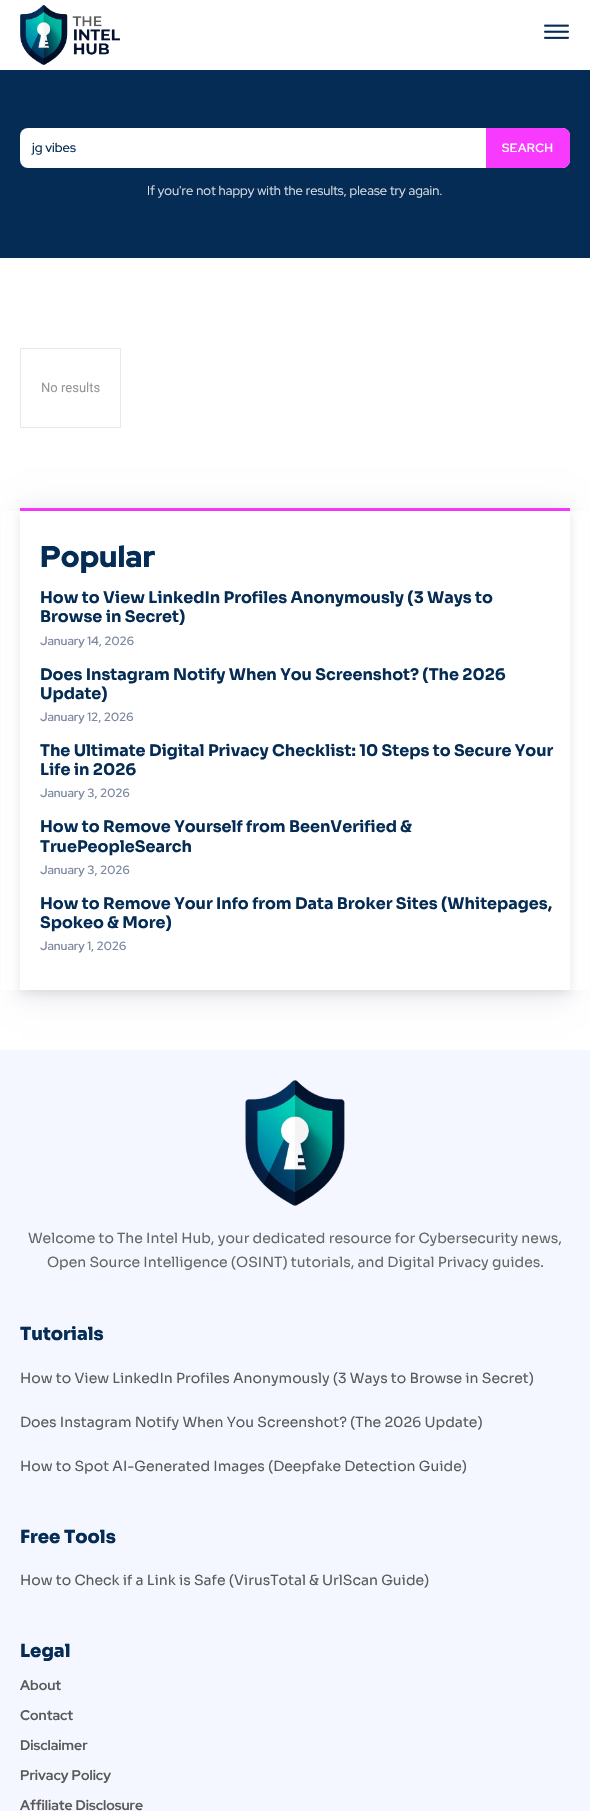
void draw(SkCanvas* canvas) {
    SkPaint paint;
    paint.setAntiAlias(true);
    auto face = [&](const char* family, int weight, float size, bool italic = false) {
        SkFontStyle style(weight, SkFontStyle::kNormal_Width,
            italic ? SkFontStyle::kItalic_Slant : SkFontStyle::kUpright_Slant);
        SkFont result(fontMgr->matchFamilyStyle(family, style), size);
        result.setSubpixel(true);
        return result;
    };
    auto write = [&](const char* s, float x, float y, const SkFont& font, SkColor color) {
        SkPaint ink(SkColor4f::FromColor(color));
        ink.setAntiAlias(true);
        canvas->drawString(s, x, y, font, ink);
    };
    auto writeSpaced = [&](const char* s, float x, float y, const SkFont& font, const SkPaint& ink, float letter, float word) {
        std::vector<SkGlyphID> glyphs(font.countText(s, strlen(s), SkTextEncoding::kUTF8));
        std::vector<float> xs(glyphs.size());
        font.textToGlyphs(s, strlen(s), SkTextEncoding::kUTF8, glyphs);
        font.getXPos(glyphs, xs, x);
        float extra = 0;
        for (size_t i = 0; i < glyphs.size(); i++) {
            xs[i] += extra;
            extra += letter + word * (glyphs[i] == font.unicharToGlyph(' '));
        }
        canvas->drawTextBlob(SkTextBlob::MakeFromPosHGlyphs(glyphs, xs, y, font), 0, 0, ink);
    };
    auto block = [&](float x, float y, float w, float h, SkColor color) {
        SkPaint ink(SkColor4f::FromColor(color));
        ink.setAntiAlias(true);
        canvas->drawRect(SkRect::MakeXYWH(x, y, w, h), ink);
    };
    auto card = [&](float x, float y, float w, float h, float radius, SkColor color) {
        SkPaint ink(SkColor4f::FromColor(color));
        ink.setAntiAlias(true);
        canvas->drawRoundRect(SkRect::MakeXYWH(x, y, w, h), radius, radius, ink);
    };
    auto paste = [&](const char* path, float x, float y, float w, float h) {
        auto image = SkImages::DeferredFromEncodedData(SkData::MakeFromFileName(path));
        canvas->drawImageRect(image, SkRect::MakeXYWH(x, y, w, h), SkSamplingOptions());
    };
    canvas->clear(SK_ColorWHITE);
    paste("pic1.png", 20, 5, 100, 60);
    paste("pic2.png", 544, 24, 25, 15);
    block(0, 70, 590, 188, SkColorSetRGB(5, 44, 84));
    card(20, 128, 550, 40, 8, SK_ColorWHITE);
    auto kFont1 = face("Red Hat Display", 500, 13);
    write("jg vibes", 32, 152, kFont1, SkColorSetRGB(5, 44, 84));
    paint.setColor(SkColorSetRGB(248, 58, 255));
    canvas->drawPath(SkPathBuilder().moveTo(486, 128).lineTo(562, 128).cubicTo(566.5f, 128, 570, 131.5f, 570, 136).lineTo(570, 160).cubicTo(570, 164.5f, 566.5f, 168, 562, 168).lineTo(486, 168).close().detach(), paint);
    auto kFont2 = face("Red Hat Display", 600, 12);
    paint.setColor(SK_ColorWHITE);
    writeSpaced("SEARCH", 502, 152, kFont2, paint, 0.5f, 0);
    auto kFont3 = face("Red Hat Display", 400, 13);
    write("If you're not happy with the results, please try again.", 147, 195, kFont3, SkColorSetRGB(218, 223, 229));
    paint.setStyle(SkPaint::kStroke_Style);
    paint.setStrokeWidth(1);
    paint.setColor(SkColorSetRGB(232, 232, 232));
    canvas->drawRect(SkRect::MakeXYWH(20.5f, 348.5f, 100, 79), paint);
    auto kFont4 = face("Roboto", 400, 13);
    write("No results", 41, 392, kFont4, SkColorSetRGB(151, 151, 151));
    paint.setStyle(SkPaint::kFill_Style);
    paint.setColor(SkColorSetARGB(26, 2, 2, 71));
    paint.setMaskFilter(SkMaskFilter::MakeBlur(kNormal_SkBlurStyle, 15));
    canvas->drawRect(SkRect::MakeXYWH(20, 512, 550, 482), paint);
    paint.setMaskFilter(nullptr);
    block(20, 508, 550, 3, SkColorSetRGB(248, 58, 255));
    block(1, 511, 588, 479, SK_ColorWHITE);
    canvas->save();
    canvas->clipPath(SkPathBuilder(SkPathFillType::kEvenOdd).moveTo(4, 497).lineTo(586, 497).lineTo(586, 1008).lineTo(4, 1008).close().moveTo(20, 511).lineTo(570, 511).lineTo(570, 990).lineTo(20, 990).close().detach(), true);
    paint.setColor(SkColorSetARGB(26, 0, 0, 0));
    paint.setMaskFilter(SkMaskFilter::MakeBlur(kNormal_SkBlurStyle, 5));
    canvas->drawRect(SkRect::MakeXYWH(20, 513, 550, 479), paint);
    paint.setMaskFilter(nullptr);
    canvas->restore();
    auto kFont5 = face("Red Hat Display", 900, 30);
    write("Popular", 40, 567, kFont5, SkColorSetRGB(5, 44, 84));
    auto kFont6 = face("Sora", 700, 16);
    write("How to View LinkedIn Profiles Anonymously (3 Ways to", 40, 603, kFont6, SkColorSetRGB(5, 44, 84));
    write("Browse in Secret)", 40, 622, kFont6, SkColorSetRGB(5, 44, 84));
    write("January 14, 2026", 40, 645, kFont2, SkColorSetRGB(124, 137, 160));
    write("Does Instagram Notify When You Screenshot? (The 2026", 40, 680, kFont6, SkColorSetRGB(5, 44, 84));
    write("Update)", 40, 699, kFont6, SkColorSetRGB(5, 44, 84));
    write("January 12, 2026", 40, 721, kFont2, SkColorSetRGB(124, 137, 160));
    write("The Ultimate Digital Privacy Checklist: 10 Steps to Secure Your", 40, 756, kFont6, SkColorSetRGB(5, 44, 84));
    write("Life in 2026", 40, 775, kFont6, SkColorSetRGB(5, 44, 84));
    write("January 3, 2026", 40, 797, kFont2, SkColorSetRGB(124, 137, 160));
    write("How to Remove Yourself from BeenVerified &", 40, 832, kFont6, SkColorSetRGB(5, 44, 84));
    write("TruePeopleSearch", 40, 852, kFont6, SkColorSetRGB(5, 44, 84));
    write("January 3, 2026", 40, 874, kFont2, SkColorSetRGB(124, 137, 160));
    write("How to Remove Your Info from Data Broker Sites (Whitepages,", 40, 909, kFont6, SkColorSetRGB(5, 44, 84));
    write("Spokeo & More)", 40, 928, kFont6, SkColorSetRGB(5, 44, 84));
    write("January 1, 2026", 40, 950, kFont2, SkColorSetRGB(124, 137, 160));
    block(0, 1050, 590, 761, SkColorSetRGB(244, 247, 255));
    paste("pic3.png", 245, 1080, 100, 126);
    auto kFont7 = face("Sora", 400, 14);
    write("Welcome to The Intel Hub, your dedicated resource for Cybersecurity news,", 28, 1243, kFont7, SkColorSetRGB(102, 102, 102));
    write("Open Source Intelligence (OSINT) tutorials, and Digital Privacy guides.", 47, 1267, kFont7, SkColorSetRGB(102, 102, 102));
    auto kFont8 = face("Sora", 800, 18);
    write("Tutorials", 20, 1340, kFont8, SkColorSetRGB(5, 44, 84));
    write("How to View LinkedIn Profiles Anonymously (3 Ways to Browse in Secret)", 20, 1383, kFont7, SkColorSetRGB(90, 90, 90));
    write("Does Instagram Notify When You Screenshot? (The 2026 Update)", 20, 1427, kFont7, SkColorSetRGB(90, 90, 90));
    write("How to Spot AI-Generated Images (Deepfake Detection Guide)", 20, 1471, kFont7, SkColorSetRGB(90, 90, 90));
    write("Free Tools", 20, 1543, kFont8, SkColorSetRGB(5, 44, 84));
    write("How to Check if a Link is Safe (VirusTotal & UrlScan Guide)", 20, 1585, kFont7, SkColorSetRGB(90, 90, 90));
    write("Legal", 20, 1657, kFont8, SkColorSetRGB(5, 44, 84));
    auto kFont9 = face("Red Hat Display", 700, 14);
    write("About", 20, 1690, kFont9, SkColorSetRGB(90, 90, 90));
    write("Contact", 20, 1720, kFont9, SkColorSetRGB(90, 90, 90));
    write("Disclaimer", 20, 1750, kFont9, SkColorSetRGB(90, 90, 90));
    write("Privacy Policy", 20, 1780, kFont9, SkColorSetRGB(90, 90, 90));
    write("Affiliate Disclosure", 20, 1810, kFont9, SkColorSetRGB(90, 90, 90));
}
